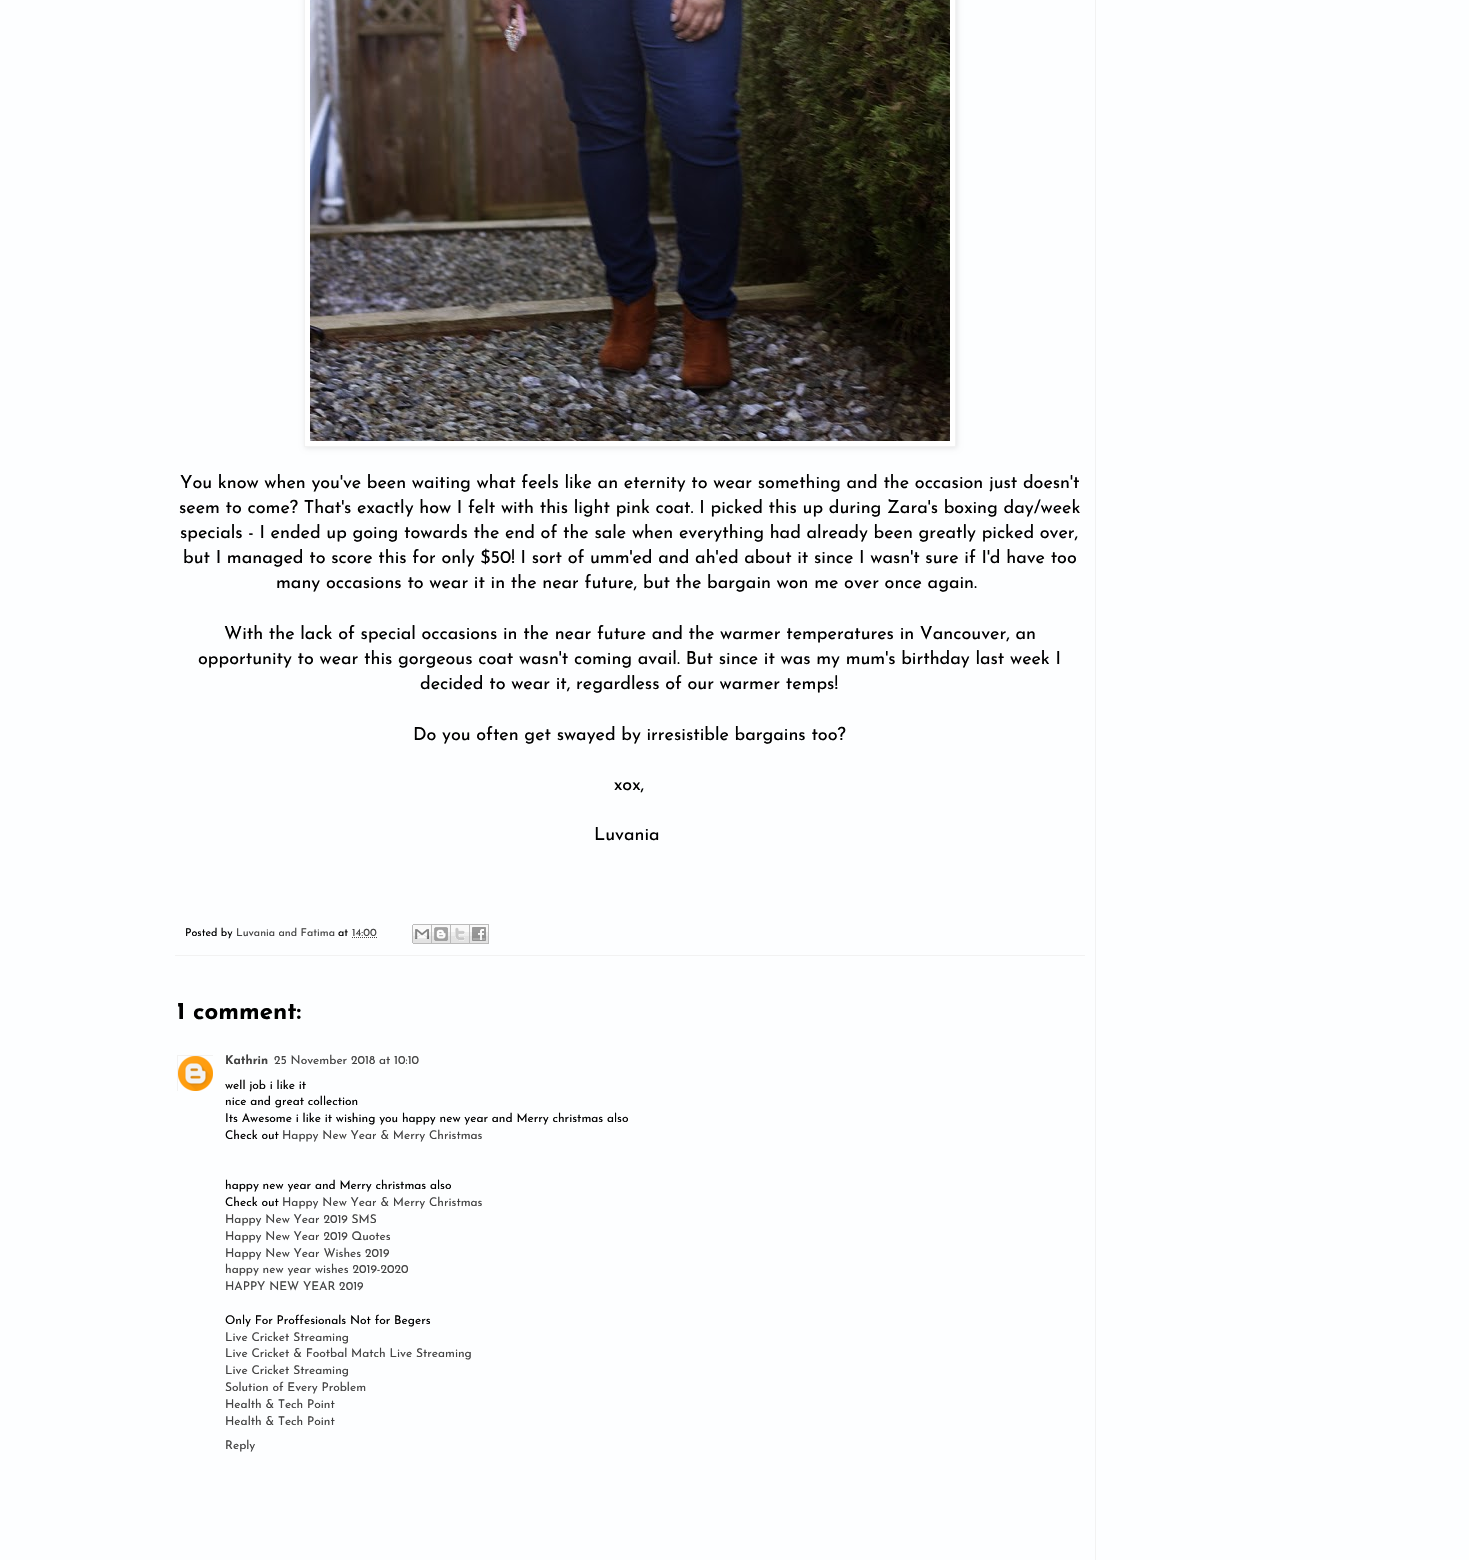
void draw(SkCanvas* canvas) {
    SkPaint paint;
    paint.setAntiAlias(true);
    auto face = [&](const char* family, int weight, float size, bool italic = false) {
        SkFontStyle style(weight, SkFontStyle::kNormal_Width,
            italic ? SkFontStyle::kItalic_Slant : SkFontStyle::kUpright_Slant);
        SkFont result(fontMgr->matchFamilyStyle(family, style), size);
        result.setSubpixel(true);
        return result;
    };
    auto write = [&](const char* s, float x, float y, const SkFont& font, SkColor color) {
        SkPaint ink(SkColor4f::FromColor(color));
        ink.setAntiAlias(true);
        canvas->drawString(s, x, y, font, ink);
    };
    auto block = [&](float x, float y, float w, float h, SkColor color) {
        SkPaint ink(SkColor4f::FromColor(color));
        ink.setAntiAlias(true);
        canvas->drawRect(SkRect::MakeXYWH(x, y, w, h), ink);
    };
    auto paste = [&](const char* path, float x, float y, float w, float h) {
        auto image = SkImages::DeferredFromEncodedData(SkData::MakeFromFileName(path));
        canvas->drawImageRect(image, SkRect::MakeXYWH(x, y, w, h), SkSamplingOptions());
    };
    canvas->clear(SkColorSetRGB(253, 254, 255));
    paint.setColor(SkColorSetARGB(26, 0, 0, 0));
    paint.setMaskFilter(SkMaskFilter::MakeBlur(kNormal_SkBlurStyle, 2.5f));
    canvas->drawRect(SkRect::MakeXYWH(305, -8, 652, 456), paint);
    paint.setMaskFilter(nullptr);
    paint.setColor(SK_ColorWHITE);
    canvas->drawRect(SkRect::MakeXYWH(304.5f, -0.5f, 651, 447), paint);
    paint.setStyle(SkPaint::kStroke_Style);
    paint.setStrokeWidth(1);
    paint.setColor(SkColorSetRGB(242, 242, 242));
    canvas->drawRect(SkRect::MakeXYWH(304.5f, -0.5f, 651, 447), paint);
    paste("pic1.png", 310, 0, 640, 441);
    auto kFont1 = face("Josefin Sans", 400, 18);
    write("You know when you've been waiting what feels like an eternity to wear something and the occasion just doesn't", 180, 488, kFont1, SK_ColorBLACK);
    write("seem to come? That's exactly how I felt with this light pink coat. I picked this up during Zara's boxing day/week", 179, 513, kFont1, SK_ColorBLACK);
    write("specials - I ended up going towards the end of the sale when everything had already been greatly picked over,", 180, 538, kFont1, SK_ColorBLACK);
    write("but I managed to score this for only $50! I sort of umm'ed and ah'ed about it since I wasn't sure if I'd have too", 183, 563, kFont1, SK_ColorBLACK);
    write("many occasions to wear it in the near future, but the bargain won me over once again.", 276, 588, kFont1, SK_ColorBLACK);
    write("With the lack of special occasions in the near future and the warmer temperatures in Vancouver, an", 224, 639, kFont1, SK_ColorBLACK);
    write("opportunity to wear this gorgeous coat wasn't coming avail. But since it was my mum's birthday last week I", 198, 664, kFont1, SK_ColorBLACK);
    write("decided to wear it, regardless of our warmer temps!", 420, 689, kFont1, SK_ColorBLACK);
    write("Do you often get swayed by irresistible bargains too?", 413, 740, kFont1, SK_ColorBLACK);
    write("xox,", 614, 790, kFont1, SK_ColorBLACK);
    write("Luvania", 594, 840, kFont1, SK_ColorBLACK);
    block(175, 955, 910, 1, SkColorSetRGB(242, 242, 242));
    auto kFont2 = face("Josefin Sans", 400, 10.75f);
    write("Posted by", 185, 936, kFont2, SK_ColorBLACK);
    write("Luvania and Fatima", 236, 936, kFont2, SkColorSetRGB(67, 67, 67));
    write("at", 338, 936, kFont2, SK_ColorBLACK);
    write("14:00", 352, 936, kFont2, SkColorSetRGB(67, 67, 67));
    paint.setColor(SkColorSetRGB(67, 67, 67));
    paint.setPathEffect(SkDashPathEffect::Make({{1, 1}}, 0));
    canvas->drawPath(SkPathBuilder().moveTo(352, 937.5f).lineTo(377, 937.5f).detach(), paint);
    paint.setPathEffect(nullptr);
    paste("pic2.png", 412, 924, 20, 20);
    paste("pic3.png", 432, 924, 19, 20);
    paste("pic4.png", 451, 924, 19, 20);
    paste("pic5.png", 470, 924, 19, 20);
    auto kFont3 = face("Josefin Sans", 700, 24);
    write("1 comment:", 177, 1019, kFont3, SK_ColorBLACK);
    canvas->save();
    canvas->clipRect(SkRect::MakeXYWH(177, 1055, 36, 36));
    paint.setColor(SkColorSetRGB(242, 242, 242));
    canvas->drawRect(SkRect::MakeXYWH(177.5f, 1055.5f, 36, 36), paint);
    canvas->restore();
    paste("pic6.png", 178, 1056, 35, 35);
    auto kFont4 = face("Josefin Sans", 700, 12);
    write("Kathrin", 225, 1064, kFont4, SkColorSetRGB(67, 67, 67));
    auto kFont5 = face("Josefin Sans", 400, 12);
    write("25 November 2018 at 10:10", 274, 1064, kFont5, SkColorSetRGB(67, 67, 67));
    write("well job i like it", 225, 1089, kFont5, SK_ColorBLACK);
    write("nice and great collection", 225, 1105, kFont5, SK_ColorBLACK);
    write("Its Awesome i like it wishing you happy new year and Merry christmas also", 225, 1122, kFont5, SK_ColorBLACK);
    write("Check out", 225, 1139, kFont5, SK_ColorBLACK);
    write("Happy New Year & Merry Christmas", 282, 1139, kFont5, SkColorSetRGB(67, 67, 67));
    write("happy new year and Merry christmas also", 225, 1189, kFont5, SK_ColorBLACK);
    write("Check out", 225, 1206, kFont5, SK_ColorBLACK);
    write("Happy New Year & Merry Christmas", 282, 1206, kFont5, SkColorSetRGB(67, 67, 67));
    write("Happy New Year 2019 SMS", 225, 1223, kFont5, SkColorSetRGB(67, 67, 67));
    write("Happy New Year 2019 Quotes", 225, 1240, kFont5, SkColorSetRGB(67, 67, 67));
    write("Happy New Year Wishes 2019", 225, 1257, kFont5, SkColorSetRGB(67, 67, 67));
    write("happy new year wishes 2019-2020", 225, 1273, kFont5, SkColorSetRGB(67, 67, 67));
    write("HAPPY NEW YEAR 2019", 225, 1290, kFont5, SkColorSetRGB(67, 67, 67));
    write("Only For Proffesionals Not for Begers", 225, 1324, kFont5, SK_ColorBLACK);
    write("Live Cricket Streaming", 225, 1341, kFont5, SkColorSetRGB(67, 67, 67));
    write("Live Cricket & Footbal Match Live Streaming", 225, 1357, kFont5, SkColorSetRGB(67, 67, 67));
    write("Live Cricket Streaming", 225, 1374, kFont5, SkColorSetRGB(67, 67, 67));
    write("Solution of Every Problem", 225, 1391, kFont5, SkColorSetRGB(67, 67, 67));
    write("Health & Tech Point", 225, 1408, kFont5, SkColorSetRGB(67, 67, 67));
    write("Health & Tech Point", 225, 1425, kFont5, SkColorSetRGB(67, 67, 67));
    write("Reply", 225, 1449, kFont5, SkColorSetRGB(67, 67, 67));
    block(1095, 0, 1, 1560, SkColorSetRGB(242, 242, 242));
}
